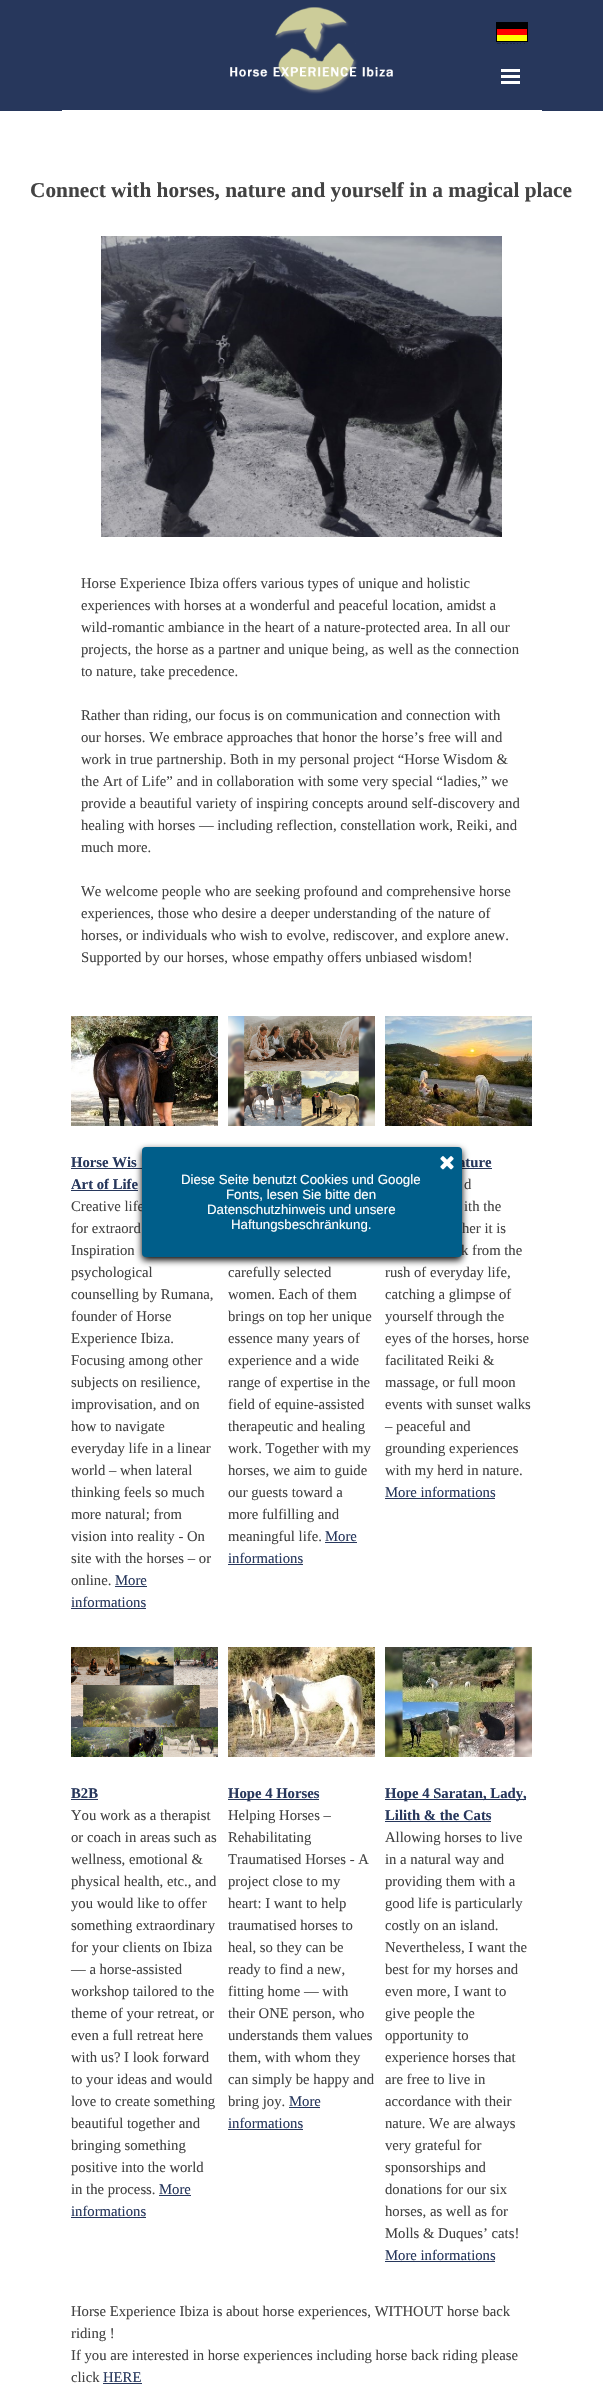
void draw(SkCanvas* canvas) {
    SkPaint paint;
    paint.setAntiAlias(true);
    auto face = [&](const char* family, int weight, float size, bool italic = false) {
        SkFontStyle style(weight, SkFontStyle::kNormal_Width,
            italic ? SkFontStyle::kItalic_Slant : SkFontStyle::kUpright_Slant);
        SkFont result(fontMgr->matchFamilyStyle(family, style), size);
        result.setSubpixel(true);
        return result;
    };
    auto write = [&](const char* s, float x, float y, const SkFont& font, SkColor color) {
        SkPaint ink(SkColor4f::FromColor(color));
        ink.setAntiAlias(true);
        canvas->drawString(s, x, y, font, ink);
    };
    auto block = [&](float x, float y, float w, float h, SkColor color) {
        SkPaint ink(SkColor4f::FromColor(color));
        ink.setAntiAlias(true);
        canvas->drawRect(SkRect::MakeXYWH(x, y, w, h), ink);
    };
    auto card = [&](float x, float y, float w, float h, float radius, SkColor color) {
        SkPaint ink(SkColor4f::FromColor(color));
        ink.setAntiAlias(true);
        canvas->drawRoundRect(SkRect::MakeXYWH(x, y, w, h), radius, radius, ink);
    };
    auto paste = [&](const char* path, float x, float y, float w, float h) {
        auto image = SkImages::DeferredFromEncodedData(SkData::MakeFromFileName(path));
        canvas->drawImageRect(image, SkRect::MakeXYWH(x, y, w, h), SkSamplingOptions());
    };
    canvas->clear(SK_ColorWHITE);
    block(0, 0, 603, 111, SkColorSetRGB(39, 55, 92));
    paste("pic1.png", 230, 7, 163, 87);
    paste("pic2.png", 496, 22, 32, 22);
    block(501, 69, 19, 3, SK_ColorWHITE);
    block(501, 75, 19, 3, SK_ColorWHITE);
    block(501, 81, 19, 3, SK_ColorWHITE);
    block(62, 110, 480, 1, SK_ColorWHITE);
    auto kFont1 = face("Liberation Serif", 700, 21.3f);
    write("Connect with horses, nature and yourself in a magical place", 30, 197, kFont1, SkColorSetRGB(67, 67, 67));
    paste("pic3.png", 101, 236, 401, 301);
    auto kFont2 = face("Liberation Serif", 400, 14.7f);
    write("Horse Experience Ibiza offers various types of unique and holistic", 81, 588, kFont2, SkColorSetRGB(67, 67, 67));
    write("experiences with horses at a wonderful and peaceful location, amidst a", 81, 610, kFont2, SkColorSetRGB(67, 67, 67));
    write("wild-romantic ambiance in the heart of a nature-protected area. In all our", 81, 632, kFont2, SkColorSetRGB(67, 67, 67));
    write("projects, the horse as a partner and unique being, as well as the connection", 81, 654, kFont2, SkColorSetRGB(67, 67, 67));
    write("to nature, take precedence.", 81, 676, kFont2, SkColorSetRGB(67, 67, 67));
    write("Rather than riding, our focus is on communication and connection with", 81, 720, kFont2, SkColorSetRGB(67, 67, 67));
    write("our horses. We embrace approaches that honor the horse’s free will and", 81, 742, kFont2, SkColorSetRGB(67, 67, 67));
    write("work in true partnership. Both in my personal project “Horse Wisdom &", 81, 764, kFont2, SkColorSetRGB(67, 67, 67));
    write("the Art of Life” and in collaboration with some very special “ladies,” we", 81, 786, kFont2, SkColorSetRGB(67, 67, 67));
    write("provide a beautiful variety of inspiring concepts around self-discovery and", 81, 808, kFont2, SkColorSetRGB(67, 67, 67));
    write("healing with horses — including reflection, constellation work, Reiki, and", 81, 830, kFont2, SkColorSetRGB(67, 67, 67));
    write("much more.", 81, 852, kFont2, SkColorSetRGB(67, 67, 67));
    write("We welcome people who are seeking profound and comprehensive horse", 81, 896, kFont2, SkColorSetRGB(67, 67, 67));
    write("experiences, those who desire a deeper understanding of the nature of", 81, 918, kFont2, SkColorSetRGB(67, 67, 67));
    write("horses, or individuals who wish to evolve, rediscover, and explore anew.", 81, 940, kFont2, SkColorSetRGB(67, 67, 67));
    write("Supported by our horses, whose empathy offers unbiased wisdom!", 81, 962, kFont2, SkColorSetRGB(67, 67, 67));
    paste("pic4.png", 71, 1016, 147, 110);
    auto kFont3 = face("Liberation Serif", 700, 14.7f);
    write("Horse Wis", 71, 1167, kFont3, SkColorSetRGB(39, 55, 92));
    block(71, 1168, 71, 1, SkColorSetRGB(39, 55, 92));
    write("Art of Life", 71, 1189, kFont3, SkColorSetRGB(39, 55, 92));
    block(71, 1190, 67, 1, SkColorSetRGB(39, 55, 92));
    write("Creative life", 71, 1211, kFont2, SkColorSetRGB(67, 67, 67));
    write("for extraord", 71, 1233, kFont2, SkColorSetRGB(67, 67, 67));
    write("Inspiration", 71, 1255, kFont2, SkColorSetRGB(67, 67, 67));
    write("psychological", 71, 1277, kFont2, SkColorSetRGB(67, 67, 67));
    write("counselling by Rumana,", 71, 1299, kFont2, SkColorSetRGB(67, 67, 67));
    write("founder of Horse", 71, 1321, kFont2, SkColorSetRGB(67, 67, 67));
    write("Experience Ibiza.", 71, 1343, kFont2, SkColorSetRGB(67, 67, 67));
    write("Focusing among other", 71, 1365, kFont2, SkColorSetRGB(67, 67, 67));
    write("subjects on resilience,", 71, 1387, kFont2, SkColorSetRGB(67, 67, 67));
    write("improvisation, and on", 71, 1409, kFont2, SkColorSetRGB(67, 67, 67));
    write("how to navigate", 71, 1431, kFont2, SkColorSetRGB(67, 67, 67));
    write("everyday life in a linear", 71, 1453, kFont2, SkColorSetRGB(67, 67, 67));
    write("world – when lateral", 71, 1475, kFont2, SkColorSetRGB(67, 67, 67));
    write("thinking feels so much", 71, 1497, kFont2, SkColorSetRGB(67, 67, 67));
    write("more natural; from", 71, 1519, kFont2, SkColorSetRGB(67, 67, 67));
    write("vision into reality - On", 71, 1541, kFont2, SkColorSetRGB(67, 67, 67));
    write("site with the horses – or", 71, 1563, kFont2, SkColorSetRGB(67, 67, 67));
    write("online.", 71, 1585, kFont2, SkColorSetRGB(67, 67, 67));
    write("More", 115, 1585, kFont2, SkColorSetRGB(39, 55, 92));
    block(115, 1586, 32, 1, SkColorSetRGB(39, 55, 92));
    write("informations", 71, 1607, kFont2, SkColorSetRGB(39, 55, 92));
    block(71, 1608, 75, 1, SkColorSetRGB(39, 55, 92));
    paste("pic5.png", 228, 1016, 147, 110);
    write("carefully selected", 228, 1277, kFont2, SkColorSetRGB(67, 67, 67));
    write("women. Each of them", 228, 1299, kFont2, SkColorSetRGB(67, 67, 67));
    write("brings on top her unique", 228, 1321, kFont2, SkColorSetRGB(67, 67, 67));
    write("essence many years of", 228, 1343, kFont2, SkColorSetRGB(67, 67, 67));
    write("experience and a wide", 228, 1365, kFont2, SkColorSetRGB(67, 67, 67));
    write("range of expertise in the", 228, 1387, kFont2, SkColorSetRGB(67, 67, 67));
    write("field of equine-assisted", 228, 1409, kFont2, SkColorSetRGB(67, 67, 67));
    write("therapeutic and healing", 228, 1431, kFont2, SkColorSetRGB(67, 67, 67));
    write("work. Together with my", 228, 1453, kFont2, SkColorSetRGB(67, 67, 67));
    write("horses, we aim to guide", 228, 1475, kFont2, SkColorSetRGB(67, 67, 67));
    write("our guests toward a", 228, 1497, kFont2, SkColorSetRGB(67, 67, 67));
    write("more fulfilling and", 228, 1519, kFont2, SkColorSetRGB(67, 67, 67));
    write("meaningful life.", 228, 1541, kFont2, SkColorSetRGB(67, 67, 67));
    write("More", 325, 1541, kFont2, SkColorSetRGB(39, 55, 92));
    block(325, 1542, 32, 1, SkColorSetRGB(39, 55, 92));
    write("informations", 228, 1563, kFont2, SkColorSetRGB(39, 55, 92));
    block(228, 1564, 75, 1, SkColorSetRGB(39, 55, 92));
    paste("pic6.png", 385, 1016, 147, 110);
    write("ature", 458, 1167, kFont3, SkColorSetRGB(39, 55, 92));
    block(462, 1168, 30, 1, SkColorSetRGB(39, 55, 92));
    write("d", 464, 1189, kFont2, SkColorSetRGB(67, 67, 67));
    write("ith the", 464, 1211, kFont2, SkColorSetRGB(67, 67, 67));
    write("her it is", 462, 1233, kFont2, SkColorSetRGB(67, 67, 67));
    write("k from the", 461, 1255, kFont2, SkColorSetRGB(67, 67, 67));
    write("rush of everyday life,", 385, 1277, kFont2, SkColorSetRGB(67, 67, 67));
    write("catching a glimpse of", 385, 1299, kFont2, SkColorSetRGB(67, 67, 67));
    write("yourself through the", 385, 1321, kFont2, SkColorSetRGB(67, 67, 67));
    write("eyes of the horses, horse", 385, 1343, kFont2, SkColorSetRGB(67, 67, 67));
    write("facilitated Reiki &", 385, 1365, kFont2, SkColorSetRGB(67, 67, 67));
    write("massage, or full moon", 385, 1387, kFont2, SkColorSetRGB(67, 67, 67));
    write("events with sunset walks", 385, 1409, kFont2, SkColorSetRGB(67, 67, 67));
    write("– peaceful and", 385, 1431, kFont2, SkColorSetRGB(67, 67, 67));
    write("grounding experiences", 385, 1453, kFont2, SkColorSetRGB(67, 67, 67));
    write("with my herd in nature.", 385, 1475, kFont2, SkColorSetRGB(67, 67, 67));
    write("More informations", 385, 1497, kFont2, SkColorSetRGB(39, 55, 92));
    block(385, 1498, 110, 1, SkColorSetRGB(39, 55, 92));
    paste("pic7.png", 71, 1647, 147, 110);
    write("B2B", 71, 1798, kFont3, SkColorSetRGB(39, 55, 92));
    block(71, 1799, 27, 1, SkColorSetRGB(39, 55, 92));
    write("You work as a therapist", 71, 1820, kFont2, SkColorSetRGB(67, 67, 67));
    write("or coach in areas such as", 71, 1842, kFont2, SkColorSetRGB(67, 67, 67));
    write("wellness, emotional &", 71, 1864, kFont2, SkColorSetRGB(67, 67, 67));
    write("physical health, etc., and", 71, 1886, kFont2, SkColorSetRGB(67, 67, 67));
    write("you would like to offer", 71, 1908, kFont2, SkColorSetRGB(67, 67, 67));
    write("something extraordinary", 71, 1930, kFont2, SkColorSetRGB(67, 67, 67));
    write("for your clients on Ibiza", 71, 1952, kFont2, SkColorSetRGB(67, 67, 67));
    write("— a horse-assisted", 71, 1974, kFont2, SkColorSetRGB(67, 67, 67));
    write("workshop tailored to the", 71, 1996, kFont2, SkColorSetRGB(67, 67, 67));
    write("theme of your retreat, or", 71, 2018, kFont2, SkColorSetRGB(67, 67, 67));
    write("even a full retreat here", 71, 2040, kFont2, SkColorSetRGB(67, 67, 67));
    write("with us? I look forward", 71, 2062, kFont2, SkColorSetRGB(67, 67, 67));
    write("to your ideas and would", 71, 2084, kFont2, SkColorSetRGB(67, 67, 67));
    write("love to create something", 71, 2106, kFont2, SkColorSetRGB(67, 67, 67));
    write("beautiful together and", 71, 2128, kFont2, SkColorSetRGB(67, 67, 67));
    write("bringing something", 71, 2150, kFont2, SkColorSetRGB(67, 67, 67));
    write("positive into the world", 71, 2172, kFont2, SkColorSetRGB(67, 67, 67));
    write("in the process.", 71, 2194, kFont2, SkColorSetRGB(67, 67, 67));
    write("More", 159, 2194, kFont2, SkColorSetRGB(39, 55, 92));
    block(159, 2195, 32, 1, SkColorSetRGB(39, 55, 92));
    write("informations", 71, 2216, kFont2, SkColorSetRGB(39, 55, 92));
    block(71, 2217, 75, 1, SkColorSetRGB(39, 55, 92));
    paste("pic8.png", 228, 1647, 147, 110);
    block(228, 1799, 91, 1, SkColorSetRGB(39, 55, 92));
    write("Hope 4 Horses", 228, 1798, kFont3, SkColorSetRGB(39, 55, 92));
    write("Helping Horses –", 228, 1820, kFont2, SkColorSetRGB(67, 67, 67));
    write("Rehabilitating", 228, 1842, kFont2, SkColorSetRGB(67, 67, 67));
    write("Traumatised Horses - A", 228, 1864, kFont2, SkColorSetRGB(67, 67, 67));
    write("project close to my", 228, 1886, kFont2, SkColorSetRGB(67, 67, 67));
    write("heart: I want to help", 228, 1908, kFont2, SkColorSetRGB(67, 67, 67));
    write("traumatised horses to", 228, 1930, kFont2, SkColorSetRGB(67, 67, 67));
    write("heal, so they can be", 228, 1952, kFont2, SkColorSetRGB(67, 67, 67));
    write("ready to find a new,", 228, 1974, kFont2, SkColorSetRGB(67, 67, 67));
    write("fitting home — with", 228, 1996, kFont2, SkColorSetRGB(67, 67, 67));
    write("their ONE person, who", 228, 2018, kFont2, SkColorSetRGB(67, 67, 67));
    write("understands them values", 228, 2040, kFont2, SkColorSetRGB(67, 67, 67));
    write("them, with whom they", 228, 2062, kFont2, SkColorSetRGB(67, 67, 67));
    write("can simply be happy and", 228, 2084, kFont2, SkColorSetRGB(67, 67, 67));
    write("bring joy.", 228, 2106, kFont2, SkColorSetRGB(67, 67, 67));
    write("More", 289, 2106, kFont2, SkColorSetRGB(39, 55, 92));
    block(289, 2107, 31, 1, SkColorSetRGB(39, 55, 92));
    write("informations", 228, 2128, kFont2, SkColorSetRGB(39, 55, 92));
    block(228, 2129, 75, 1, SkColorSetRGB(39, 55, 92));
    paste("pic9.png", 385, 1647, 147, 110);
    block(385, 1799, 141, 1, SkColorSetRGB(39, 55, 92));
    write("Hope 4 Saratan, Lady,", 385, 1798, kFont3, SkColorSetRGB(39, 55, 92));
    write("Lilith & the Cats", 385, 1820, kFont3, SkColorSetRGB(39, 55, 92));
    block(385, 1821, 106, 1, SkColorSetRGB(39, 55, 92));
    write("Allowing horses to live", 385, 1842, kFont2, SkColorSetRGB(67, 67, 67));
    write("in a natural way and", 385, 1864, kFont2, SkColorSetRGB(67, 67, 67));
    write("providing them with a", 385, 1886, kFont2, SkColorSetRGB(67, 67, 67));
    write("good life is particularly", 385, 1908, kFont2, SkColorSetRGB(67, 67, 67));
    write("costly on an island.", 385, 1930, kFont2, SkColorSetRGB(67, 67, 67));
    write("Nevertheless, I want the", 385, 1952, kFont2, SkColorSetRGB(67, 67, 67));
    write("best for my horses and", 385, 1974, kFont2, SkColorSetRGB(67, 67, 67));
    write("even more, I want to", 385, 1996, kFont2, SkColorSetRGB(67, 67, 67));
    write("give people the", 385, 2018, kFont2, SkColorSetRGB(67, 67, 67));
    write("opportunity to", 385, 2040, kFont2, SkColorSetRGB(67, 67, 67));
    write("experience horses that", 385, 2062, kFont2, SkColorSetRGB(67, 67, 67));
    write("are free to live in", 385, 2084, kFont2, SkColorSetRGB(67, 67, 67));
    write("accordance with their", 385, 2106, kFont2, SkColorSetRGB(67, 67, 67));
    write("nature. We are always", 385, 2128, kFont2, SkColorSetRGB(67, 67, 67));
    write("very grateful for", 385, 2150, kFont2, SkColorSetRGB(67, 67, 67));
    write("sponsorships and", 385, 2172, kFont2, SkColorSetRGB(67, 67, 67));
    write("donations for our six", 385, 2194, kFont2, SkColorSetRGB(67, 67, 67));
    write("horses, as well as for", 385, 2216, kFont2, SkColorSetRGB(67, 67, 67));
    write("Molls & Duques’ cats!", 385, 2238, kFont2, SkColorSetRGB(67, 67, 67));
    write("More informations", 385, 2260, kFont2, SkColorSetRGB(39, 55, 92));
    block(385, 2261, 110, 1, SkColorSetRGB(39, 55, 92));
    write("Horse Experience Ibiza is about horse experiences, WITHOUT horse back", 71, 2316, kFont2, SkColorSetRGB(67, 67, 67));
    write("riding !", 71, 2338, kFont2, SkColorSetRGB(67, 67, 67));
    write("If you are interested in horse experiences including horse back riding please", 71, 2360, kFont2, SkColorSetRGB(67, 67, 67));
    write("click", 71, 2382, kFont2, SkColorSetRGB(67, 67, 67));
    write("HERE", 103, 2382, kFont2, SkColorSetRGB(39, 55, 92));
    block(103, 2383, 39, 1, SkColorSetRGB(39, 55, 92));
    paint.setColor(SK_ColorBLACK);
    paint.setMaskFilter(SkMaskFilter::MakeBlur(kNormal_SkBlurStyle, 3.5f));
    canvas->drawRoundRect(SkRect::MakeXYWH(142, 1150, 320, 110), 4, 4, paint);
    paint.setMaskFilter(nullptr);
    card(142, 1147, 320, 110, 4, SkColorSetRGB(0, 94, 138));
    paste("pic10.png", 440, 1156, 14, 14);
    auto kFont4 = face("Liberation Sans", 400, 13.3f);
    write("Diese Seite benutzt Cookies und Google", 181, 1184, kFont4, SK_ColorWHITE);
    write("Fonts, lesen Sie bitte den", 226, 1199, kFont4, SK_ColorWHITE);
    write("Datenschutzhinweis und unsere", 207, 1214, kFont4, SK_ColorWHITE);
    write("Haftungsbeschränkung.", 231, 1229, kFont4, SK_ColorWHITE);
}
